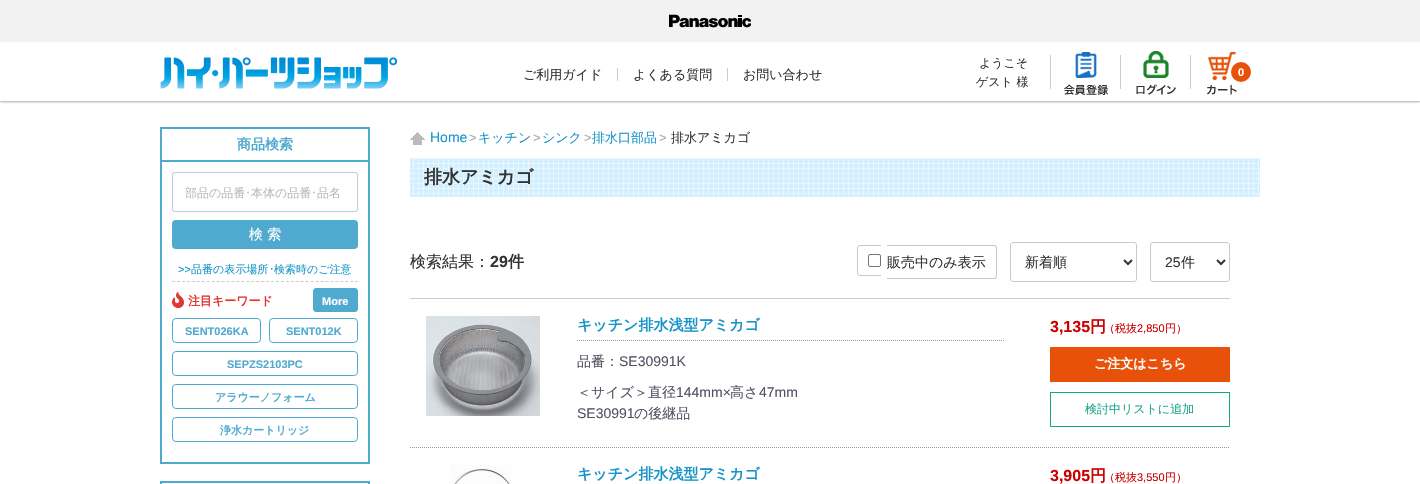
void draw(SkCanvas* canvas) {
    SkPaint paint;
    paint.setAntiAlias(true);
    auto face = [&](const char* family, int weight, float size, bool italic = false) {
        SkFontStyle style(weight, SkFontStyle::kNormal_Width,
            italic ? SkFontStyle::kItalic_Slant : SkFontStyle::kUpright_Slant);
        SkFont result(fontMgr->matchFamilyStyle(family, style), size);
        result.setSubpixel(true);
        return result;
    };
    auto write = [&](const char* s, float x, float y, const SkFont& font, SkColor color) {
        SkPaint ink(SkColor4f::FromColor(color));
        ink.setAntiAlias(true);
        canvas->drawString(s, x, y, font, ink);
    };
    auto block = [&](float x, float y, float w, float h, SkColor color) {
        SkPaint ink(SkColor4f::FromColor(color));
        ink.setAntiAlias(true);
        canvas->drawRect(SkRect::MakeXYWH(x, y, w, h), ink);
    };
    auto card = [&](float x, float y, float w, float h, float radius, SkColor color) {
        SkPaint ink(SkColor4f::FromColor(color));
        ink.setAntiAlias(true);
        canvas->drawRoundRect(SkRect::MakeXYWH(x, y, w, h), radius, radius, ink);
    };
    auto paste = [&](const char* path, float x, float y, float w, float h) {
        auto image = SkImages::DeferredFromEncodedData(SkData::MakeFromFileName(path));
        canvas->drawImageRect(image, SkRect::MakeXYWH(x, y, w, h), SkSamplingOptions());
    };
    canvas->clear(SK_ColorWHITE);
    canvas->save();
    canvas->clipRect(SkRect::MakeXYWH(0, 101, 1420, 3));
    paint.setColor(SkColorSetRGB(170, 170, 170));
    paint.setMaskFilter(SkMaskFilter::MakeBlur(kNormal_SkBlurStyle, 1));
    canvas->drawRect(SkRect::MakeXYWH(0, 1, 1420, 101), paint);
    paint.setMaskFilter(nullptr);
    canvas->restore();
    block(0, 0, 1420, 42, SkColorSetRGB(242, 242, 242));
    paste("pic1.png", 669, 14, 82, 14);
    paste("pic2.png", 160, 57, 238, 32);
    block(617, 68, 1, 13, SkColorSetRGB(204, 204, 204));
    auto kFont1 = face("WenQuanYi Zen Hei", 500, 13);
    write("ご利用ガイド", 523, 79, kFont1, SkColorSetRGB(51, 51, 51));
    block(727, 68, 1, 13, SkColorSetRGB(204, 204, 204));
    write("よくある質問", 633, 79, kFont1, SkColorSetRGB(51, 51, 51));
    write("お問い合わせ", 743, 79, kFont1, SkColorSetRGB(51, 51, 51));
    auto kFont2 = face("WenQuanYi Zen Hei", 500, 12);
    write("ようこそ", 979, 67, kFont2, SkColorSetRGB(51, 51, 51));
    write("ゲスト 様", 976, 86, kFont2, SkColorSetRGB(51, 51, 51));
    block(1050, 55, 1, 34, SkColorSetRGB(204, 204, 204));
    paste("pic3.png", 1064, 52, 44, 43);
    block(1120, 55, 1, 34, SkColorSetRGB(204, 204, 204));
    paste("pic4.png", 1136, 51, 40, 44);
    block(1190, 55, 1, 34, SkColorSetRGB(204, 204, 204));
    paste("pic5.png", 1206, 52, 31, 43);
    paint.setColor(SkColorSetRGB(232, 81, 9));
    canvas->drawCircle(1241, 72, 10, paint);
    auto kFont3 = face("Liberation Sans", 700, 11);
    write("0", 1238, 76, kFont3, SK_ColorWHITE);
    paint.setStyle(SkPaint::kStroke_Style);
    paint.setStrokeWidth(2);
    paint.setColor(SkColorSetRGB(80, 170, 208));
    canvas->drawRect(SkRect::MakeXYWH(161, 128, 208, 335), paint);
    block(162, 160, 206, 2, SkColorSetRGB(80, 170, 208));
    auto kFont4 = face("WenQuanYi Zen Hei", 700, 14);
    write("商品検索", 237, 149, kFont4, SkColorSetRGB(80, 170, 208));
    paint.setStrokeWidth(1);
    paint.setColor(SkColorSetRGB(196, 204, 206));
    canvas->drawRoundRect(SkRect::MakeXYWH(172.5f, 172.5f, 185, 39), 2.5f, 2.5f, paint);
    write("部品の品番", 185, 197, kFont2, SkColorSetRGB(187, 187, 187));
    auto kFont5 = face("IPAPGothic", 400, 12);
    write("･", 245, 197, kFont5, SkColorSetRGB(187, 187, 187));
    write("本体の品番", 251, 197, kFont2, SkColorSetRGB(187, 187, 187));
    write("･", 311, 197, kFont5, SkColorSetRGB(187, 187, 187));
    write("品名", 317, 197, kFont2, SkColorSetRGB(187, 187, 187));
    card(172, 220, 186, 29, 4, SkColorSetRGB(80, 170, 208));
    auto kFont6 = face("WenQuanYi Zen Hei", 500, 14);
    write("検 索", 249, 239, kFont6, SK_ColorWHITE);
    auto kFont7 = face("Liberation Sans", 400, 11);
    write(">>", 178, 273, kFont7, SkColorSetRGB(23, 149, 201));
    auto kFont8 = face("WenQuanYi Zen Hei", 500, 11);
    write("品番の表示場所", 191, 273, kFont8, SkColorSetRGB(23, 149, 201));
    auto kFont9 = face("IPAPGothic", 400, 11);
    write("･", 269, 273, kFont9, SkColorSetRGB(23, 149, 201));
    write("検索時のご注意", 274, 273, kFont8, SkColorSetRGB(23, 149, 201));
    paint.setColor(SkColorSetRGB(204, 204, 204));
    paint.setPathEffect(SkDashPathEffect::Make({{3, 1.95f}}, 0));
    canvas->drawPath(SkPathBuilder().moveTo(172, 281.5f).lineTo(358, 281.5f).detach(), paint);
    paint.setPathEffect(nullptr);
    paste("pic6.png", 172, 292, 12, 16);
    auto kFont10 = face("WenQuanYi Zen Hei", 700, 12);
    write("注目キーワード", 188, 305, kFont10, SkColorSetRGB(225, 56, 49));
    paint.setStyle(SkPaint::kFill_Style);
    paint.setColor(SkColorSetRGB(80, 170, 208));
    canvas->drawRoundRect(SkRect::MakeXYWH(313.5f, 288.5f, 44, 23), 2.5f, 2.5f, paint);
    paint.setStyle(SkPaint::kStroke_Style);
    canvas->drawRoundRect(SkRect::MakeXYWH(313.5f, 288.5f, 44, 23), 2.5f, 2.5f, paint);
    write("More", 322, 305, kFont3, SK_ColorWHITE);
    canvas->drawRoundRect(SkRect::MakeXYWH(172.5f, 318.5f, 88, 24), 3.5f, 3.5f, paint);
    write("SENT026KA", 185, 335, kFont3, SkColorSetRGB(80, 170, 208));
    canvas->drawRoundRect(SkRect::MakeXYWH(269.5f, 318.5f, 88, 24), 3.5f, 3.5f, paint);
    write("SENT012K", 286, 335, kFont3, SkColorSetRGB(80, 170, 208));
    canvas->drawRoundRect(SkRect::MakeXYWH(172.5f, 351.5f, 185, 24), 3.5f, 3.5f, paint);
    write("SEPZS2103PC", 227, 368, kFont3, SkColorSetRGB(80, 170, 208));
    canvas->drawRoundRect(SkRect::MakeXYWH(172.5f, 384.5f, 185, 24), 3.5f, 3.5f, paint);
    auto kFont11 = face("WenQuanYi Zen Hei", 700, 11);
    write("アラウーノフォーム", 215, 401, kFont11, SkColorSetRGB(80, 170, 208));
    canvas->drawRoundRect(SkRect::MakeXYWH(172.5f, 417.5f, 185, 24), 3.5f, 3.5f, paint);
    write("浄水カートリッジ", 220, 434, kFont11, SkColorSetRGB(80, 170, 208));
    paint.setStrokeWidth(2);
    canvas->drawRect(SkRect::MakeXYWH(161, 482, 208, 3), paint);
    paste("pic7.png", 410, 132, 15, 13);
    auto kFont12 = face("Liberation Sans", 400, 14);
    write("Home", 430, 142, kFont12, SkColorSetRGB(23, 149, 201));
    auto kFont13 = face("Liberation Sans", 400, 13);
    write(">", 469, 142, kFont13, SkColorSetRGB(170, 170, 170));
    write("キッチン", 478, 142, kFont1, SkColorSetRGB(23, 149, 201));
    write(">", 533, 142, kFont13, SkColorSetRGB(170, 170, 170));
    write("シンク", 542, 142, kFont1, SkColorSetRGB(23, 149, 201));
    write(">", 584, 142, kFont13, SkColorSetRGB(170, 170, 170));
    write("排水口部品", 592, 142, kFont1, SkColorSetRGB(23, 149, 201));
    write(">", 659, 142, kFont13, SkColorSetRGB(170, 170, 170));
    write("排水アミカゴ", 671, 142, kFont1, SkColorSetRGB(51, 51, 51));
    paste("pic8.png", 410, 158, 850, 39);
    auto kFont14 = face("WenQuanYi Zen Hei", 700, 18);
    write("排水アミカゴ", 424, 183, kFont14, SkColorSetRGB(51, 51, 51));
    block(410, 298, 820, 1, SkColorSetRGB(204, 204, 204));
    auto kFont15 = face("WenQuanYi Zen Hei", 500, 16);
    write("検索結果：", 410, 267, kFont15, SkColorSetRGB(51, 51, 51));
    auto kFont16 = face("Liberation Sans", 700, 16);
    write("29", 490, 267, kFont16, SkColorSetRGB(51, 51, 51));
    auto kFont17 = face("WenQuanYi Zen Hei", 700, 16);
    write("件", 508, 267, kFont17, SkColorSetRGB(51, 51, 51));
    paint.setStyle(SkPaint::kFill_Style);
    paint.setColor(SkColorSetRGB(196, 204, 206));
    canvas->drawPath(SkPathBuilder(SkPathFillType::kEvenOdd).moveTo(860, 245).lineTo(881, 245).lineTo(881, 276).lineTo(860, 276).cubicTo(858.5f, 276, 857, 274.5f, 857, 273).lineTo(857, 248).cubicTo(857, 246.5f, 858.5f, 245, 860, 245).close().moveTo(860, 246).lineTo(881, 246).lineTo(881, 275).lineTo(860, 275).cubicTo(859, 275, 858, 274, 858, 273).lineTo(858, 248).cubicTo(858, 247, 859, 246, 860, 246).close().detach(), paint);
    canvas->drawPath(SkPathBuilder(SkPathFillType::kEvenOdd).moveTo(887, 245).lineTo(994, 245).cubicTo(996, 245, 997, 246, 997, 248).lineTo(997, 276).cubicTo(997, 278, 996, 279, 994, 279).lineTo(887, 279).close().moveTo(887, 246).lineTo(994, 246).cubicTo(995, 246, 996, 247, 996, 248).lineTo(996, 276).cubicTo(996, 277, 995, 278, 994, 278).lineTo(887, 278).close().detach(), paint);
    paint.setStyle(SkPaint::kStroke_Style);
    paint.setStrokeWidth(1);
    paint.setColor(SkColorSetRGB(118, 118, 118));
    canvas->drawRoundRect(SkRect::MakeXYWH(868.5f, 254.5f, 12, 12), 1.5f, 1.5f, paint);
    write("販売中のみ表示", 887, 267, kFont6, SkColorSetRGB(51, 51, 51));
    paint.setColor(SkColorSetRGB(196, 204, 206));
    canvas->drawRoundRect(SkRect::MakeXYWH(1010.5f, 242.5f, 126, 39), 2.5f, 2.5f, paint);
    paint.setStrokeWidth(2);
    paint.setColor(SkColorSetRGB(51, 51, 51));
    canvas->drawPath(SkPathBuilder().moveTo(1124, 260).lineTo(1128, 264).lineTo(1132, 260).detach(), paint);
    write("新着順", 1025, 267, kFont6, SkColorSetRGB(51, 51, 51));
    paint.setStrokeWidth(1);
    paint.setColor(SkColorSetRGB(196, 204, 206));
    canvas->drawRoundRect(SkRect::MakeXYWH(1150.5f, 242.5f, 79, 39), 2.5f, 2.5f, paint);
    paint.setStrokeWidth(2);
    paint.setColor(SkColorSetRGB(51, 51, 51));
    canvas->drawPath(SkPathBuilder().moveTo(1217, 260).lineTo(1221, 264).lineTo(1225, 260).detach(), paint);
    write("25", 1165, 267, kFont12, SkColorSetRGB(51, 51, 51));
    write("件", 1181, 267, kFont6, SkColorSetRGB(51, 51, 51));
    paint.setStrokeWidth(1);
    paint.setColor(SkColorSetRGB(153, 153, 153));
    paint.setPathEffect(SkDashPathEffect::Make({{1, 1}}, 0));
    canvas->drawPath(SkPathBuilder().moveTo(410, 447.5f).lineTo(1230, 447.5f).detach(), paint);
    paint.setPathEffect(nullptr);
    paste("pic9.png", 426, 316, 114, 100);
    paint.setPathEffect(SkDashPathEffect::Make({{1, 1}}, 0));
    canvas->drawPath(SkPathBuilder().moveTo(577, 340.5f).lineTo(1005, 340.5f).detach(), paint);
    paint.setPathEffect(nullptr);
    auto kFont18 = face("WenQuanYi Zen Hei", 700, 15);
    write("キッチン排水浅型アミカゴ", 577, 330, kFont18, SkColorSetRGB(23, 149, 201));
    write("品番：", 577, 366, kFont6, SkColorSetRGB(82, 81, 98));
    write("SE30991K", 619, 366, kFont12, SkColorSetRGB(82, 81, 98));
    write("＜サイズ＞直径", 577, 397, kFont6, SkColorSetRGB(82, 81, 98));
    write("144mm×", 676, 397, kFont12, SkColorSetRGB(82, 81, 98));
    write("高さ", 730, 397, kFont6, SkColorSetRGB(82, 81, 98));
    write("47mm", 759, 397, kFont12, SkColorSetRGB(82, 81, 98));
    write("SE30991", 577, 418, kFont12, SkColorSetRGB(82, 81, 98));
    write("の後継品", 634, 418, kFont6, SkColorSetRGB(82, 81, 98));
    write("3,135", 1050, 332, kFont16, SkColorSetRGB(204, 0, 0));
    write("円", 1090, 332, kFont17, SkColorSetRGB(204, 0, 0));
    write("（税抜", 1104, 332, kFont8, SkColorSetRGB(204, 0, 0));
    write("2,850", 1137, 332, kFont7, SkColorSetRGB(204, 0, 0));
    write("円）", 1165, 332, kFont8, SkColorSetRGB(204, 0, 0));
    block(1050, 347, 180, 35, SkColorSetRGB(232, 81, 9));
    auto kFont19 = face("WenQuanYi Zen Hei", 700, 13);
    write("ご注文はこちら", 1094, 368, kFont19, SK_ColorWHITE);
    paint.setColor(SkColorSetRGB(24, 166, 137));
    canvas->drawRect(SkRect::MakeXYWH(1050.5f, 392.5f, 179, 34), paint);
    write("検討中リストに追加", 1085, 413, kFont2, SkColorSetRGB(24, 166, 137));
    paste("pic10.png", 450, 465, 61, 19);
    write("キッチン排水浅型アミカゴ", 577, 479, kFont18, SkColorSetRGB(23, 149, 201));
    write("3,905", 1050, 481, kFont16, SkColorSetRGB(204, 0, 0));
    write("円", 1090, 481, kFont17, SkColorSetRGB(204, 0, 0));
    write("（税抜", 1104, 481, kFont8, SkColorSetRGB(204, 0, 0));
    write("3,550", 1137, 481, kFont7, SkColorSetRGB(204, 0, 0));
    write("円）", 1165, 481, kFont8, SkColorSetRGB(204, 0, 0));
}
